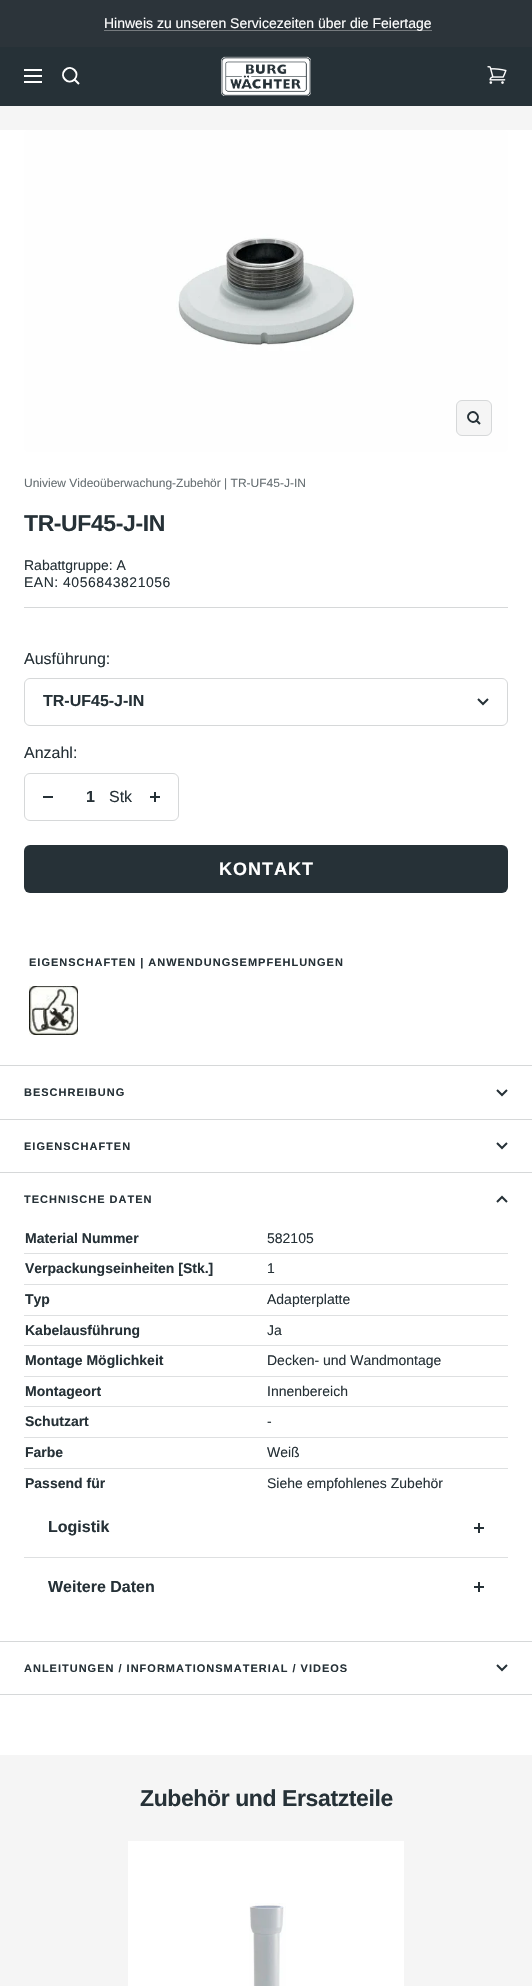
void draw(SkCanvas* canvas) {
    SkPaint paint;
    paint.setAntiAlias(true);
    auto face = [&](const char* family, int weight, float size, bool italic = false) {
        SkFontStyle style(weight, SkFontStyle::kNormal_Width,
            italic ? SkFontStyle::kItalic_Slant : SkFontStyle::kUpright_Slant);
        SkFont result(fontMgr->matchFamilyStyle(family, style), size);
        result.setSubpixel(true);
        return result;
    };
    auto write = [&](const char* s, float x, float y, const SkFont& font, SkColor color) {
        SkPaint ink(SkColor4f::FromColor(color));
        ink.setAntiAlias(true);
        canvas->drawString(s, x, y, font, ink);
    };
    auto writeSpaced = [&](const char* s, float x, float y, const SkFont& font, const SkPaint& ink, float letter, float word) {
        std::vector<SkGlyphID> glyphs(font.countText(s, strlen(s), SkTextEncoding::kUTF8));
        std::vector<float> xs(glyphs.size());
        font.textToGlyphs(s, strlen(s), SkTextEncoding::kUTF8, glyphs);
        font.getXPos(glyphs, xs, x);
        float extra = 0;
        for (size_t i = 0; i < glyphs.size(); i++) {
            xs[i] += extra;
            extra += letter + word * (glyphs[i] == font.unicharToGlyph(' '));
        }
        canvas->drawTextBlob(SkTextBlob::MakeFromPosHGlyphs(glyphs, xs, y, font), 0, 0, ink);
    };
    auto block = [&](float x, float y, float w, float h, SkColor color) {
        SkPaint ink(SkColor4f::FromColor(color));
        ink.setAntiAlias(true);
        canvas->drawRect(SkRect::MakeXYWH(x, y, w, h), ink);
    };
    auto card = [&](float x, float y, float w, float h, float radius, SkColor color) {
        SkPaint ink(SkColor4f::FromColor(color));
        ink.setAntiAlias(true);
        canvas->drawRoundRect(SkRect::MakeXYWH(x, y, w, h), radius, radius, ink);
    };
    auto paste = [&](const char* path, float x, float y, float w, float h) {
        auto image = SkImages::DeferredFromEncodedData(SkData::MakeFromFileName(path));
        canvas->drawImageRect(image, SkRect::MakeXYWH(x, y, w, h), SkSamplingOptions());
    };
    canvas->clear(SkColorSetRGB(245, 245, 245));
    block(0, 0, 532, 47, SkColorSetRGB(44, 52, 58));
    block(104, 30, 328, 1, SkColorSetRGB(118, 123, 127));
    auto kFont1 = face("Liberation Sans", 400, 14);
    write("Hinweis zu unseren Servicezeiten über die Feiertage", 104, 28, kFont1, SK_ColorWHITE);
    block(0, 47, 532, 59, SkColorSetRGB(38, 49, 55));
    paint.setStyle(SkPaint::kStroke_Style);
    paint.setStrokeWidth(2);
    paint.setColor(SK_ColorWHITE);
    canvas->drawPath(SkPathBuilder().moveTo(24, 70).lineTo(42, 70).moveTo(24, 82).lineTo(42, 82).close().moveTo(24, 76).lineTo(42, 76).close().moveTo(74.5f, 79.5f).cubicTo(80.5f, 73, 71.5f, 64, 65, 70).cubicTo(59, 76.5f, 68, 85.5f, 74.5f, 79.5f).close().moveTo(74.5f, 79.5f).lineTo(79, 84).detach(), paint);
    paste("pic1.png", 221, 56, 90, 40);
    paste("pic2.png", 487, 66, 20, 18);
    block(0, 130, 532, 1625, SK_ColorWHITE);
    paste("pic3.png", 24, 130, 484, 322);
    paint.setStyle(SkPaint::kFill_Style);
    paint.setColor(SkColorSetRGB(245, 245, 245));
    canvas->drawRoundRect(SkRect::MakeXYWH(456.5f, 400.5f, 35, 35), 5.5f, 5.5f, paint);
    paint.setStyle(SkPaint::kStroke_Style);
    paint.setStrokeWidth(1);
    paint.setColor(SkColorSetRGB(214, 216, 217));
    canvas->drawRoundRect(SkRect::MakeXYWH(456.5f, 400.5f, 35, 35), 5.5f, 5.5f, paint);
    paint.setStrokeWidth(2);
    paint.setColor(SkColorSetRGB(38, 49, 55));
    canvas->drawPath(SkPathBuilder().moveTo(476.5f, 420.5f).cubicTo(481, 416, 474, 409, 469.5f, 413.5f).cubicTo(465, 418, 472, 425, 476.5f, 420.5f).close().moveTo(476.5f, 420.5f).lineTo(480, 424).detach(), paint);
    block(24, 607, 484, 1, SkColorSetRGB(214, 216, 217));
    auto kFont2 = face("Liberation Sans", 400, 12);
    write("Uniview Videoüberwachung-Zubehör | TR-UF45-J-IN", 24, 487, kFont2, SkColorSetRGB(103, 111, 115));
    auto kFont3 = face("Liberation Sans", 700, 23);
    paint.setStyle(SkPaint::kFill_Style);
    writeSpaced("TR-UF45-J-IN", 24, 531, kFont3, paint, -0.4f, 0);
    write("Rabattgruppe: A", 24, 570, kFont1, SkColorSetRGB(38, 49, 55));
    writeSpaced("EAN: 4056843821056", 24, 587, kFont1, paint, 0.5f, 0);
    auto kFont4 = face("Liberation Sans", 400, 16);
    write("Ausführung:", 24, 664, kFont4, SkColorSetRGB(38, 49, 55));
    paint.setStyle(SkPaint::kStroke_Style);
    paint.setStrokeWidth(1);
    paint.setColor(SkColorSetRGB(214, 216, 217));
    canvas->drawRoundRect(SkRect::MakeXYWH(24.5f, 678.5f, 483, 47), 5.5f, 5.5f, paint);
    auto kFont5 = face("Liberation Sans", 700, 16);
    write("TR-UF45-J-IN", 43, 706, kFont5, SkColorSetRGB(38, 49, 55));
    paint.setStrokeWidth(2);
    paint.setColor(SkColorSetRGB(38, 49, 55));
    canvas->drawPath(SkPathBuilder().moveTo(478, 699).lineTo(483, 704).lineTo(488, 699).detach(), paint);
    write("Anzahl:", 24, 758, kFont4, SkColorSetRGB(38, 49, 55));
    paint.setStrokeWidth(1);
    paint.setColor(SkColorSetRGB(214, 216, 217));
    canvas->drawRoundRect(SkRect::MakeXYWH(24.5f, 773.5f, 154, 47), 5.5f, 5.5f, paint);
    block(43, 796, 10, 2, SkColorSetRGB(38, 49, 55));
    write("1", 86, 802, kFont5, SkColorSetRGB(38, 49, 55));
    write("Stk", 109, 802, kFont4, SkColorSetRGB(38, 49, 55));
    paste("pic4.png", 150, 792, 10, 10);
    card(24, 845, 484, 48, 6, SkColorSetRGB(38, 49, 55));
    auto kFont6 = face("Liberation Sans", 700, 18);
    paint.setStyle(SkPaint::kFill_Style);
    paint.setColor(SK_ColorWHITE);
    writeSpaced("KONTAKT", 219, 875, kFont6, paint, 1, 0);
    auto kFont7 = face("Liberation Sans", 700, 11);
    paint.setColor(SkColorSetRGB(38, 49, 55));
    writeSpaced("EIGENSCHAFTEN | ANWENDUNGSEMPFEHLUNGEN", 29, 966, kFont7, paint, 1, 0);
    paste("pic5.png", 29, 986, 49, 49);
    block(0, 1065, 532, 1, SkColorSetRGB(214, 216, 217));
    writeSpaced("BESCHREIBUNG", 24, 1096, kFont7, paint, 1, 0);
    block(0, 1119, 532, 1, SkColorSetRGB(214, 216, 217));
    paint.setStyle(SkPaint::kStroke_Style);
    paint.setStrokeWidth(2);
    canvas->drawPath(SkPathBuilder().moveTo(497, 1090).lineTo(502, 1095).lineTo(507, 1090).moveTo(497, 1143).lineTo(502, 1148).lineTo(507, 1143).detach(), paint);
    paint.setStyle(SkPaint::kFill_Style);
    writeSpaced("EIGENSCHAFTEN", 24, 1150, kFont7, paint, 1, 0);
    block(0, 1172, 532, 1, SkColorSetRGB(214, 216, 217));
    writeSpaced("TECHNISCHE DATEN", 24, 1203, kFont7, paint, 1, 0);
    paint.setStyle(SkPaint::kStroke_Style);
    canvas->drawPath(SkPathBuilder().moveTo(507, 1202).lineTo(502, 1197).lineTo(497, 1202).detach(), paint);
    block(24, 1253, 484, 1, SkColorSetRGB(222, 224, 225));
    auto kFont8 = face("Liberation Sans", 700, 14);
    write("Material Nummer", 25, 1243, kFont8, SkColorSetRGB(38, 49, 55));
    write("582105", 267, 1243, kFont1, SkColorSetRGB(38, 49, 55));
    block(24, 1284, 484, 1, SkColorSetRGB(222, 224, 225));
    write("Verpackungseinheiten [Stk.]", 25, 1273, kFont8, SkColorSetRGB(38, 49, 55));
    write("1", 267, 1273, kFont1, SkColorSetRGB(38, 49, 55));
    block(24, 1315, 484, 1, SkColorSetRGB(222, 224, 225));
    write("Typ", 25, 1304, kFont8, SkColorSetRGB(38, 49, 55));
    write("Adapterplatte", 267, 1304, kFont1, SkColorSetRGB(38, 49, 55));
    block(24, 1345, 484, 1, SkColorSetRGB(222, 224, 225));
    write("Kabelausführung", 25, 1335, kFont8, SkColorSetRGB(38, 49, 55));
    write("Ja", 267, 1335, kFont1, SkColorSetRGB(38, 49, 55));
    block(24, 1376, 484, 1, SkColorSetRGB(222, 224, 225));
    write("Montage Möglichkeit", 25, 1365, kFont8, SkColorSetRGB(38, 49, 55));
    write("Decken- und Wandmontage", 267, 1365, kFont1, SkColorSetRGB(38, 49, 55));
    block(24, 1406, 484, 1, SkColorSetRGB(222, 224, 225));
    write("Montageort", 25, 1396, kFont8, SkColorSetRGB(38, 49, 55));
    write("Innenbereich", 267, 1396, kFont1, SkColorSetRGB(38, 49, 55));
    block(24, 1437, 484, 1, SkColorSetRGB(222, 224, 225));
    write("Schutzart", 25, 1426, kFont8, SkColorSetRGB(38, 49, 55));
    write("-", 267, 1426, kFont1, SkColorSetRGB(38, 49, 55));
    block(24, 1468, 484, 1, SkColorSetRGB(222, 224, 225));
    write("Farbe", 25, 1457, kFont8, SkColorSetRGB(38, 49, 55));
    write("Weiß", 267, 1457, kFont1, SkColorSetRGB(38, 49, 55));
    write("Passend für", 25, 1488, kFont8, SkColorSetRGB(38, 49, 55));
    write("Siehe empfohlenes Zubehör", 267, 1488, kFont1, SkColorSetRGB(38, 49, 55));
    write("Logistik", 48, 1532, kFont5, SkColorSetRGB(38, 49, 55));
    block(478, 1523, 2, 10, SkColorSetRGB(38, 49, 55));
    block(474, 1527, 10, 2, SkColorSetRGB(38, 49, 55));
    block(24, 1557, 484, 1, SkColorSetRGB(222, 224, 225));
    write("Weitere Daten", 48, 1592, kFont5, SkColorSetRGB(38, 49, 55));
    block(478, 1582, 2, 10, SkColorSetRGB(38, 49, 55));
    block(474, 1586, 10, 2, SkColorSetRGB(38, 49, 55));
    block(0, 1641, 532, 1, SkColorSetRGB(214, 216, 217));
    block(0, 1694, 532, 1, SkColorSetRGB(214, 216, 217));
    paint.setStyle(SkPaint::kFill_Style);
    writeSpaced("ANLEITUNGEN / INFORMATIONSMATERIAL / VIDEOS", 24, 1672, kFont7, paint, 1, 0);
    paint.setStyle(SkPaint::kStroke_Style);
    canvas->drawPath(SkPathBuilder().moveTo(497, 1665).lineTo(502, 1670).lineTo(507, 1665).detach(), paint);
    paint.setStyle(SkPaint::kFill_Style);
    writeSpaced("Zubehör und Ersatzteile", 140, 1806, kFont3, paint, -0.4f, 0);
    block(128, 1841, 276, 145, SK_ColorWHITE);
    paste("pic6.png", 249, 1903, 37, 83);
}
